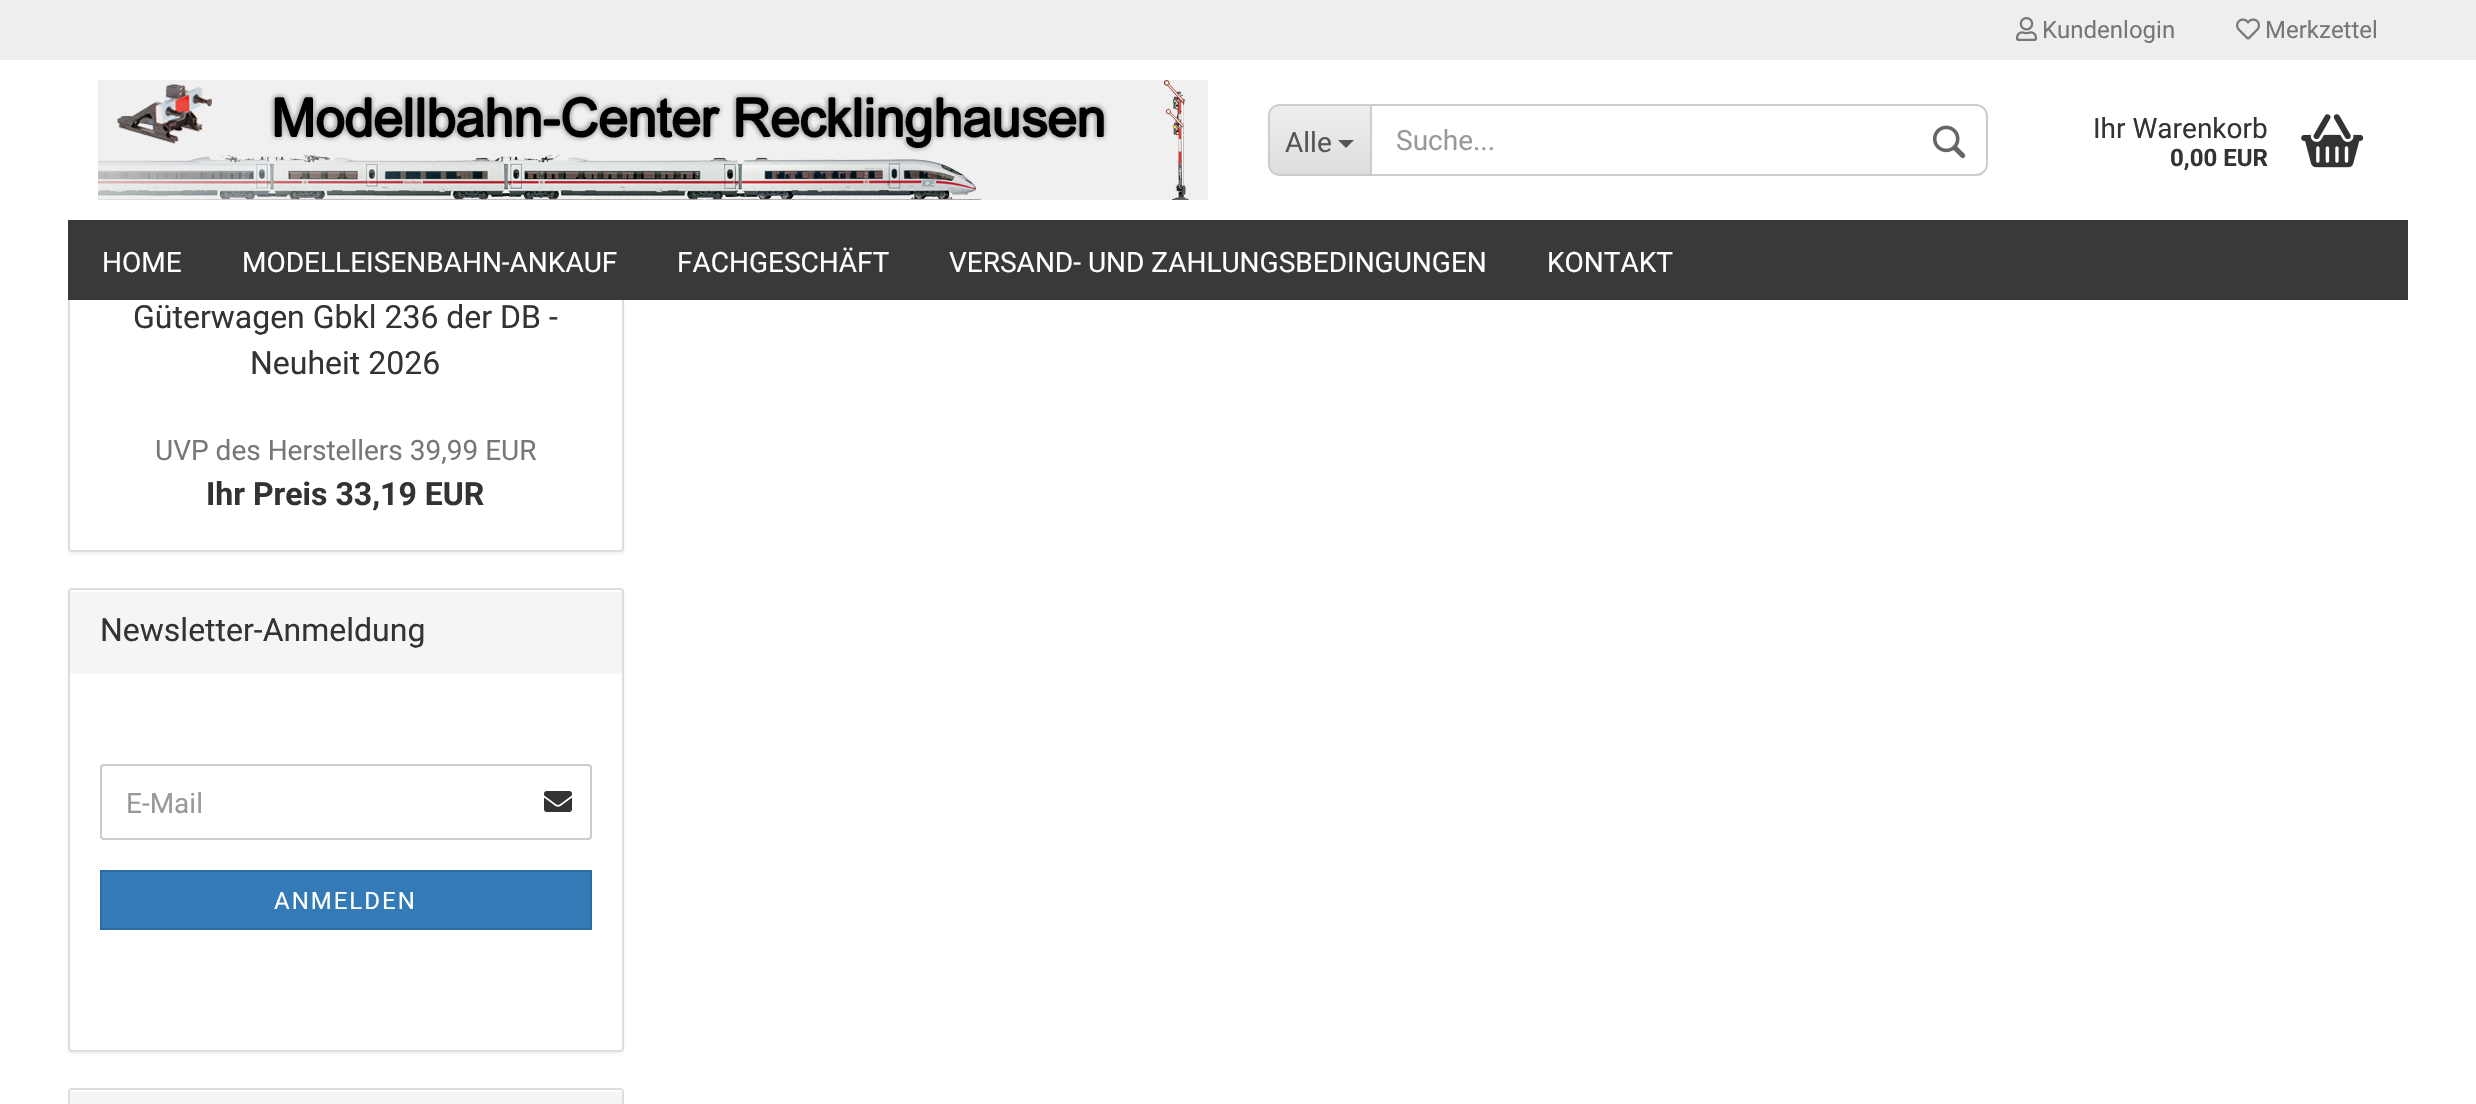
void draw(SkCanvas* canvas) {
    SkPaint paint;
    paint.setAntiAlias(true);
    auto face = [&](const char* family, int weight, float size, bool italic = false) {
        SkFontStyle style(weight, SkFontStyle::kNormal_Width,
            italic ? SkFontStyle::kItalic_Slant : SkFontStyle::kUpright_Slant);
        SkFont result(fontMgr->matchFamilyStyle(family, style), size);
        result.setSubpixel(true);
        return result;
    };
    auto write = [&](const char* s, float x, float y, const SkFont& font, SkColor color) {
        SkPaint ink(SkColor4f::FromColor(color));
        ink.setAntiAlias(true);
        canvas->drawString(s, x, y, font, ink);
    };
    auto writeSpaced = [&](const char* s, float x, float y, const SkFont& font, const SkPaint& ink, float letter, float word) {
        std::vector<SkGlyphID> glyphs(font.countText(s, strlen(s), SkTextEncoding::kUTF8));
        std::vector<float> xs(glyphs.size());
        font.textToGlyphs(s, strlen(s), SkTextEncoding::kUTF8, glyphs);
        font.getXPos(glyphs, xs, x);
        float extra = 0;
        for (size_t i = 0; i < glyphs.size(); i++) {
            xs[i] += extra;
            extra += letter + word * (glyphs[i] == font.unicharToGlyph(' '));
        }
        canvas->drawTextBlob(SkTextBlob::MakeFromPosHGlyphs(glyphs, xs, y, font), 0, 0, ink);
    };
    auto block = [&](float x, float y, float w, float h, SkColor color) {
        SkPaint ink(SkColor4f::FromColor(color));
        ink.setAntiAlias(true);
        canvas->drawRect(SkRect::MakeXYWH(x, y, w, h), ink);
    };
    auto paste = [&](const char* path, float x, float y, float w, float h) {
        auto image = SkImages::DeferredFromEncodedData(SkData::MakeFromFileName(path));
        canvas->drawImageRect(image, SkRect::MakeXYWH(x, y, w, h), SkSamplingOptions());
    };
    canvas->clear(SK_ColorWHITE);
    paint.setColor(SkColorSetARGB(13, 0, 0, 0));
    paint.setMaskFilter(SkMaskFilter::MakeBlur(kNormal_SkBlurStyle, 1));
    canvas->drawRoundRect(SkRect::MakeXYWH(68, -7, 556, 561), 4, 4, paint);
    paint.setMaskFilter(nullptr);
    paint.setColor(SK_ColorWHITE);
    canvas->drawRoundRect(SkRect::MakeXYWH(69, -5, 554, 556), 3, 3, paint);
    paint.setStyle(SkPaint::kStroke_Style);
    paint.setStrokeWidth(2);
    paint.setColor(SkColorSetRGB(221, 221, 221));
    canvas->drawRoundRect(SkRect::MakeXYWH(69, -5, 554, 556), 3, 3, paint);
    block(67, 60, 558, 240, SK_ColorWHITE);
    block(0, 0, 2476, 60, SkColorSetRGB(238, 238, 238));
    paste("pic1.png", 2016, 17, 21, 24);
    auto kFont1 = face("Roboto", 400, 24);
    write("Kundenlogin", 2042, 38, kFont1, SkColorSetRGB(119, 119, 119));
    paste("pic2.png", 2236, 18, 24, 22);
    write("Merkzettel", 2265, 38, kFont1, SkColorSetRGB(119, 119, 119));
    paste("pic3.png", 98, 80, 1110, 120);
    canvas->save();
    canvas->clipPath(SkPathBuilder().moveTo(1280, 104).lineTo(1370, 104).lineTo(1370, 176).lineTo(1280, 176).cubicTo(1273.5f, 176, 1268, 170.5f, 1268, 164).lineTo(1268, 116).cubicTo(1268, 109.5f, 1273.5f, 104, 1280, 104).close().detach(), true);
    paint.setStyle(SkPaint::kFill_Style);
    {
        const SkColor colors[] = {SkColorSetRGB(238, 238, 238), SkColorSetRGB(222, 222, 222)};
        const float stops[] = {0, 1};
        const SkPoint ends[] = {{1320, 106}, {1320, 174}};
        paint.setShader(SkGradientShader::MakeLinear(ends, colors, stops, 2, SkTileMode::kClamp));
        paint.setAlpha(255);
    }
    canvas->drawRect(SkRect::MakeXYWH(1268, 106, 102, 68), paint);
    canvas->restore();
    paint.setShader(nullptr);
    paint.setColor(SkColorSetRGB(204, 204, 204));
    canvas->drawPath(SkPathBuilder(SkPathFillType::kEvenOdd).moveTo(1280, 104).lineTo(1370, 104).lineTo(1370, 176).lineTo(1280, 176).cubicTo(1273, 176, 1268, 171, 1268, 164).lineTo(1268, 116).cubicTo(1268, 109, 1273, 104, 1280, 104).close().moveTo(1280, 106).lineTo(1370, 106).lineTo(1370, 174).lineTo(1280, 174).cubicTo(1274, 174, 1270, 170, 1270, 164).lineTo(1270, 116).cubicTo(1270, 110, 1274, 106, 1280, 106).close().detach(), paint);
    auto kFont2 = face("Roboto", 400, 28);
    write("Alle", 1285, 152, kFont2, SkColorSetRGB(85, 85, 85));
    paint.setColor(SkColorSetRGB(85, 85, 85));
    canvas->drawPath(SkPathBuilder().moveTo(1338, 140).lineTo(1354, 140).lineTo(1346, 148).close().detach(), paint);
    paint.setStyle(SkPaint::kStroke_Style);
    paint.setColor(SkColorSetRGB(204, 204, 204));
    canvas->drawPath(SkPathBuilder().moveTo(1371, 105).lineTo(1976, 105).cubicTo(1982, 105, 1987, 110, 1987, 116).lineTo(1987, 164).cubicTo(1987, 170, 1982, 175, 1976, 175).lineTo(1371, 175).close().detach(), paint);
    write("Suche...", 1396, 150, kFont2, SkColorSetRGB(153, 153, 153));
    paste("pic4.png", 1932, 125, 34, 34);
    write("Ihr Warenkorb", 2093, 138, kFont2, SkColorSetRGB(51, 51, 51));
    auto kFont3 = face("Roboto", 700, 24);
    write("0,00 EUR", 2170, 166, kFont3, SkColorSetRGB(51, 51, 51));
    paste("pic5.png", 2301, 114, 63, 54);
    block(68, 220, 2340, 80, SkColorSetRGB(57, 57, 57));
    write("HOME", 102, 272, kFont2, SK_ColorWHITE);
    write("MODELLEISENBAHN-ANKAUF", 242, 272, kFont2, SK_ColorWHITE);
    write("FACHGESCHÄFT", 677, 272, kFont2, SK_ColorWHITE);
    write("VERSAND- UND ZAHLUNGSBEDINGUNGEN", 949, 272, kFont2, SK_ColorWHITE);
    write("KONTAKT", 1547, 272, kFont2, SK_ColorWHITE);
    auto kFont4 = face("Roboto", 400, 32);
    write("Güterwagen Gbkl 236 der DB -", 133, 328, kFont4, SkColorSetRGB(51, 51, 51));
    write("Neuheit 2026", 250, 374, kFont4, SkColorSetRGB(51, 51, 51));
    write("UVP des Herstellers 39,99 EUR", 155, 460, kFont2, SkColorSetRGB(119, 119, 119));
    auto kFont5 = face("Roboto", 700, 32);
    write("Ihr Preis 33,19 EUR", 206, 505, kFont5, SkColorSetRGB(51, 51, 51));
    paint.setStyle(SkPaint::kFill_Style);
    paint.setColor(SkColorSetARGB(13, 0, 0, 0));
    paint.setMaskFilter(SkMaskFilter::MakeBlur(kNormal_SkBlurStyle, 1));
    canvas->drawRoundRect(SkRect::MakeXYWH(68, 590, 556, 464), 4, 4, paint);
    paint.setMaskFilter(nullptr);
    paint.setColor(SK_ColorWHITE);
    canvas->drawRoundRect(SkRect::MakeXYWH(69, 589, 554, 462), 3, 3, paint);
    paint.setStyle(SkPaint::kStroke_Style);
    paint.setColor(SkColorSetRGB(221, 221, 221));
    canvas->drawRoundRect(SkRect::MakeXYWH(69, 589, 554, 462), 3, 3, paint);
    paint.setStyle(SkPaint::kFill_Style);
    paint.setColor(SkColorSetRGB(245, 245, 245));
    canvas->drawPath(SkPathBuilder().moveTo(72, 590).lineTo(620, 590).cubicTo(621, 590, 622, 591, 622, 592).lineTo(622, 674).lineTo(70, 674).lineTo(70, 592).cubicTo(70, 591, 71, 590, 72, 590).close().detach(), paint);
    paint.setColor(SK_ColorWHITE);
    canvas->drawPath(SkPathBuilder().moveTo(72, 592).lineTo(620, 592).cubicTo(621, 592, 622, 593, 622, 594).cubicTo(622, 592, 622, 590, 620, 590).lineTo(72, 590).lineTo(70, 591).lineTo(70, 594).cubicTo(70, 593, 71, 592, 72, 592).close().detach(), paint);
    write("Newsletter-Anmeldung", 100, 641, kFont4, SkColorSetRGB(51, 51, 51));
    paint.setStyle(SkPaint::kStroke_Style);
    paint.setColor(SkColorSetRGB(204, 204, 204));
    canvas->drawRoundRect(SkRect::MakeXYWH(101, 765, 490, 74), 3, 3, paint);
    write("E-Mail", 126, 813, kFont2, SkColorSetRGB(153, 153, 153));
    paste("pic6.png", 544, 791, 28, 21);
    paint.setStyle(SkPaint::kFill_Style);
    paint.setColor(SkColorSetRGB(51, 122, 183));
    canvas->drawRect(SkRect::MakeXYWH(101, 871, 490, 58), paint);
    paint.setStyle(SkPaint::kStroke_Style);
    paint.setColor(SkColorSetRGB(45, 109, 163));
    canvas->drawRect(SkRect::MakeXYWH(101, 871, 490, 58), paint);
    paint.setStyle(SkPaint::kFill_Style);
    paint.setColor(SK_ColorWHITE);
    writeSpaced("ANMELDEN", 274, 909, kFont1, paint, 2, 0);
    paint.setStyle(SkPaint::kStroke_Style);
    paint.setColor(SkColorSetRGB(221, 221, 221));
    canvas->drawRoundRect(SkRect::MakeXYWH(69, 1089, 554, 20), 3, 3, paint);
    paint.setStyle(SkPaint::kFill_Style);
    paint.setColor(SkColorSetRGB(245, 245, 245));
    canvas->drawPath(SkPathBuilder().moveTo(72, 1090).lineTo(620, 1090).cubicTo(621, 1090, 622, 1091, 622, 1092).lineTo(622, 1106).lineTo(70, 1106).lineTo(70, 1092).cubicTo(70, 1091, 71, 1090, 72, 1090).close().detach(), paint);
    paint.setColor(SK_ColorWHITE);
    canvas->drawPath(SkPathBuilder().moveTo(72, 1092).lineTo(620, 1092).cubicTo(621, 1092, 622, 1093, 622, 1094).cubicTo(622, 1092, 622, 1090, 620, 1090).lineTo(72, 1090).lineTo(70, 1091).lineTo(70, 1094).cubicTo(70, 1093, 71, 1092, 72, 1092).close().detach(), paint);
}
